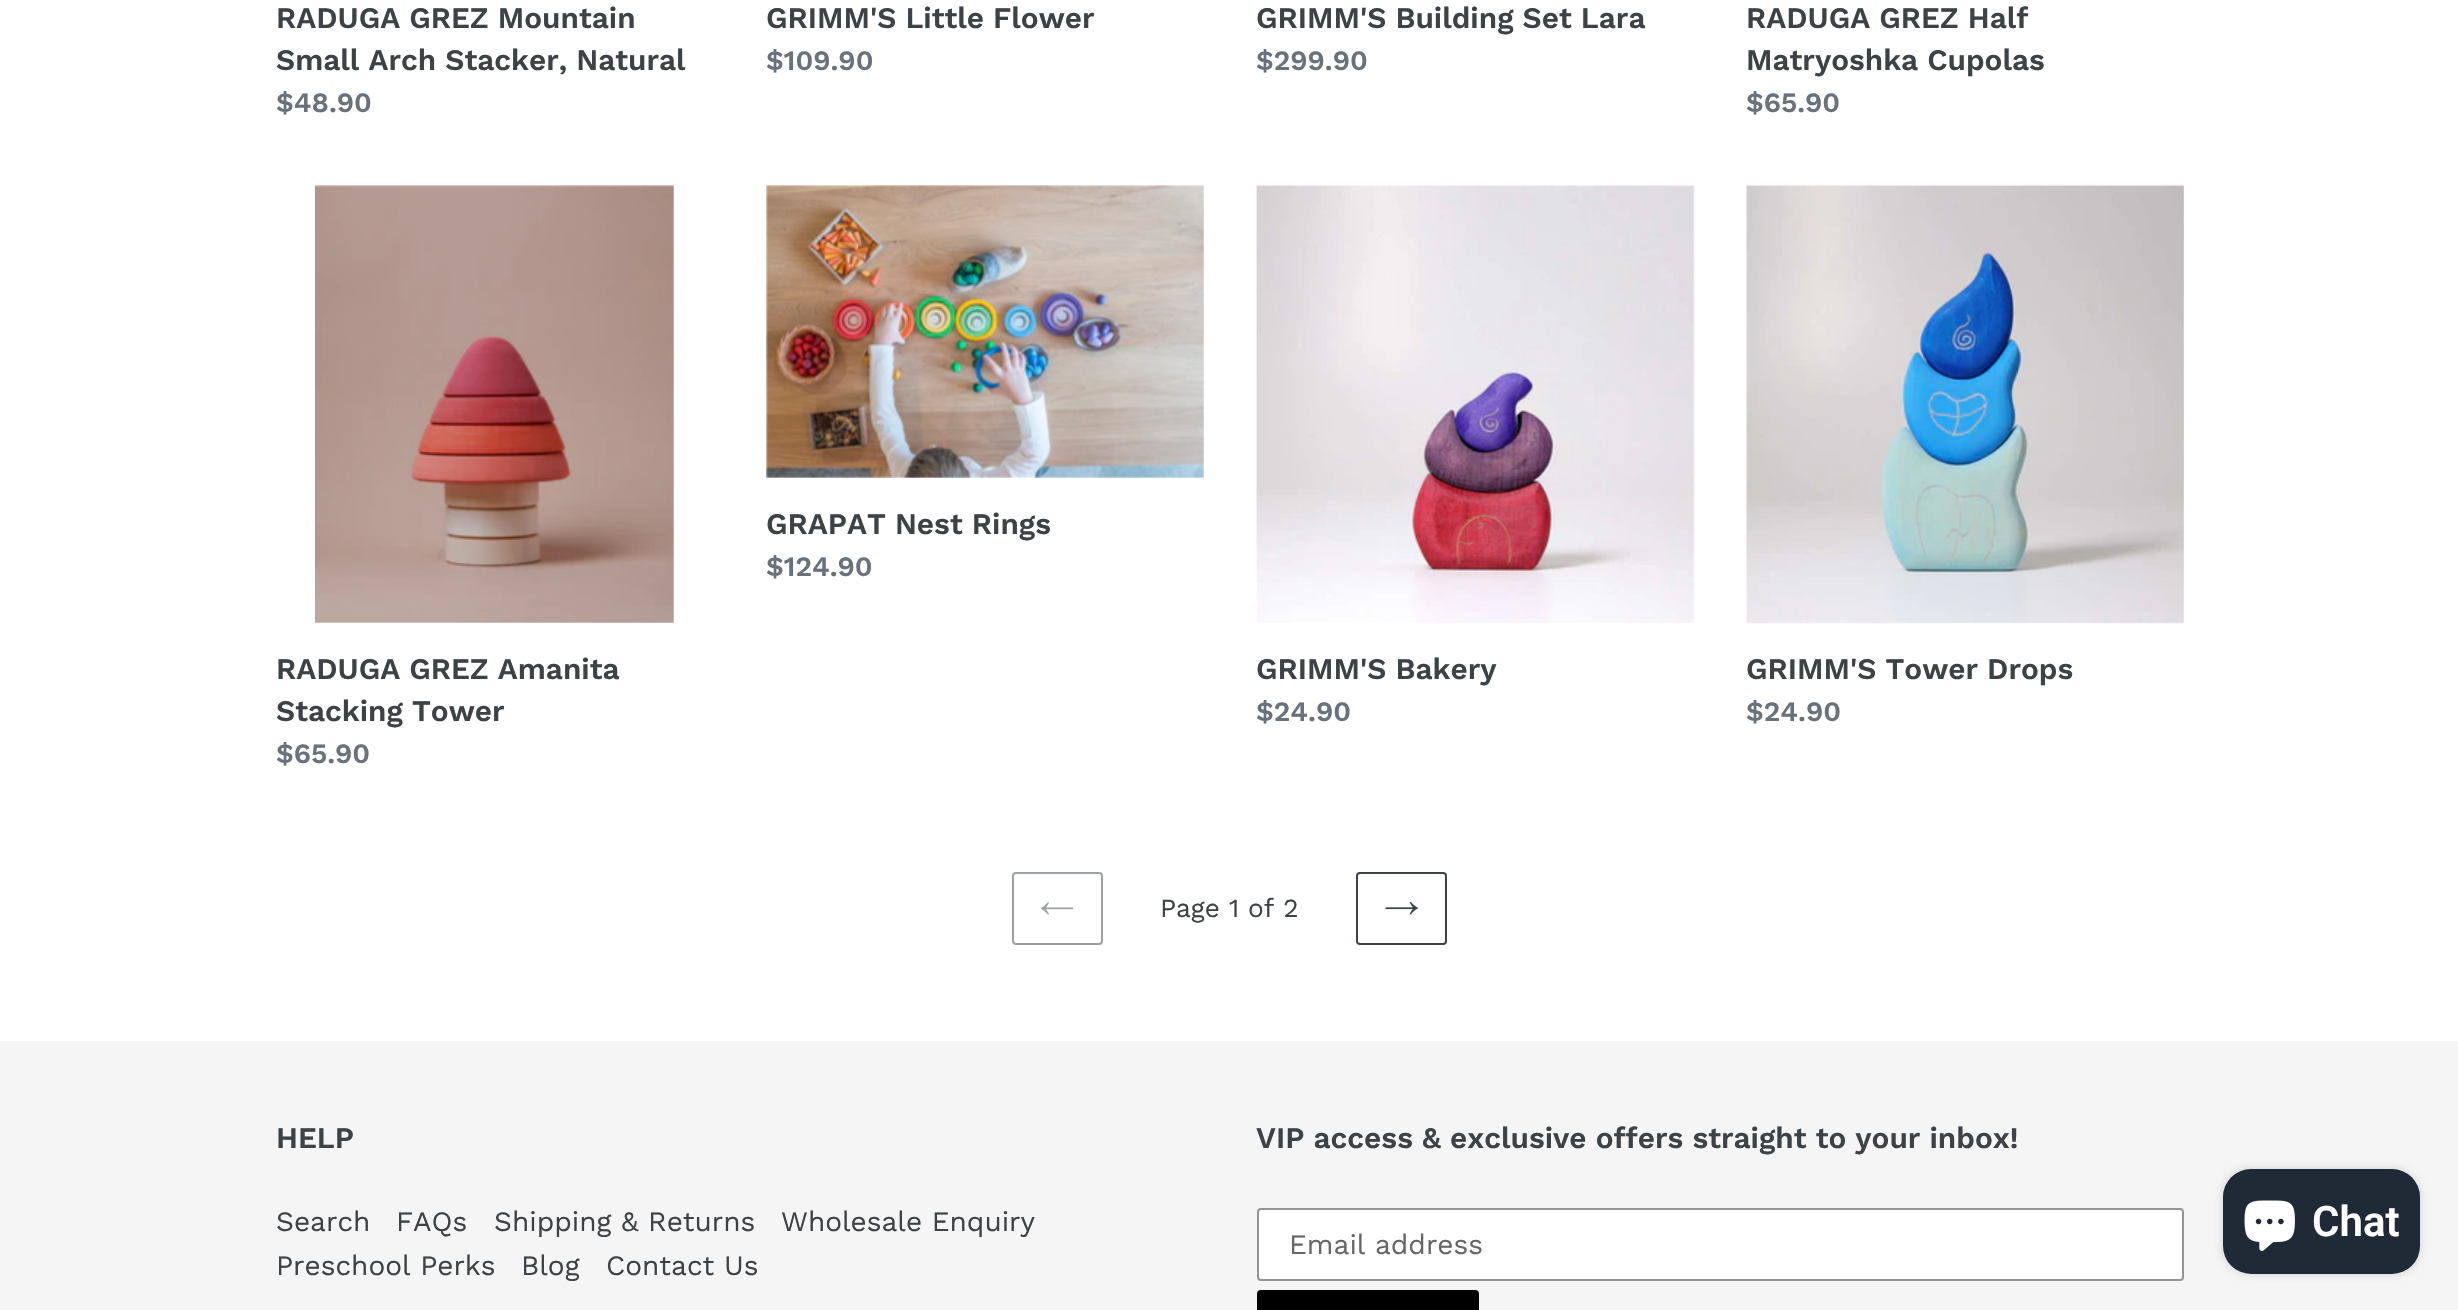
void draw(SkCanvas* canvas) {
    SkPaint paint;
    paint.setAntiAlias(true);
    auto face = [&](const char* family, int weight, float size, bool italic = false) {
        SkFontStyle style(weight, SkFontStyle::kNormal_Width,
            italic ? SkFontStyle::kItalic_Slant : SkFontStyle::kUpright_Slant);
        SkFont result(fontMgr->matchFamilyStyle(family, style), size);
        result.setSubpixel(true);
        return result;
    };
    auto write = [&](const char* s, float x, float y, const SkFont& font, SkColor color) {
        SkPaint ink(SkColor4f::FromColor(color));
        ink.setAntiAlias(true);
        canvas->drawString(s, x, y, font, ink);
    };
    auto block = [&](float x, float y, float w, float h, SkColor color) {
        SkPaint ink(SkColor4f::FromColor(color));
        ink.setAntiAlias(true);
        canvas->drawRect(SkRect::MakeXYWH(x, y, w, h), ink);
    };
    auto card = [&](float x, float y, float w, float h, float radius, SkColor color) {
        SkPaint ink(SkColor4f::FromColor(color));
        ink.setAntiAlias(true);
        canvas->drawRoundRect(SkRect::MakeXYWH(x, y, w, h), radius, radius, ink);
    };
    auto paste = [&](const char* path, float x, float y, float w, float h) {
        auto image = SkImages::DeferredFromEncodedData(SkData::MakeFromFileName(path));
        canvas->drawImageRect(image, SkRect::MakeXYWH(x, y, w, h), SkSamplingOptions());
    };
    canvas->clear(SK_ColorWHITE);
    auto kFont1 = face("Work Sans", 600, 29.75f);
    write("RADUGA GREZ Mountain", 276, 28, kFont1, SkColorSetRGB(61, 66, 70));
    write("Small Arch Stacker, Natural", 276, 70, kFont1, SkColorSetRGB(61, 66, 70));
    auto kFont2 = face("Work Sans", 600, 28);
    write("$48.90", 276, 112, kFont2, SkColorSetRGB(105, 114, 123));
    write("GRIMM'S Little Flower", 766, 28, kFont1, SkColorSetRGB(61, 66, 70));
    write("$109.90", 766, 70, kFont2, SkColorSetRGB(105, 114, 123));
    write("GRIMM'S Building Set Lara", 1256, 28, kFont1, SkColorSetRGB(61, 66, 70));
    write("$299.90", 1256, 70, kFont2, SkColorSetRGB(105, 114, 123));
    write("RADUGA GREZ Half", 1746, 28, kFont1, SkColorSetRGB(61, 66, 70));
    write("Matryoshka Cupolas", 1746, 70, kFont1, SkColorSetRGB(61, 66, 70));
    write("$65.90", 1746, 112, kFont2, SkColorSetRGB(105, 114, 123));
    paste("pic1.png", 766, 185, 438, 293);
    write("GRAPAT Nest Rings", 766, 534, kFont1, SkColorSetRGB(61, 66, 70));
    write("$124.90", 766, 576, kFont2, SkColorSetRGB(105, 114, 123));
    paste("pic2.png", 315, 185, 359, 438);
    write("RADUGA GREZ Amanita", 276, 679, kFont1, SkColorSetRGB(61, 66, 70));
    write("Stacking Tower", 276, 721, kFont1, SkColorSetRGB(61, 66, 70));
    write("$65.90", 276, 763, kFont2, SkColorSetRGB(105, 114, 123));
    paste("pic3.png", 1256, 185, 439, 438);
    write("GRIMM'S Bakery", 1256, 679, kFont1, SkColorSetRGB(61, 66, 70));
    write("$24.90", 1256, 721, kFont2, SkColorSetRGB(105, 114, 123));
    paste("pic4.png", 1745, 184, 439, 440);
    write("GRIMM'S Tower Drops", 1746, 679, kFont1, SkColorSetRGB(61, 66, 70));
    write("$24.90", 1746, 721, kFont2, SkColorSetRGB(105, 114, 123));
    paint.setStyle(SkPaint::kStroke_Style);
    paint.setStrokeWidth(2);
    paint.setColor(SkColorSetRGB(158, 161, 163));
    canvas->drawRoundRect(SkRect::MakeXYWH(1013, 873, 89, 71), 3, 3, paint);
    paste("pic5.png", 1040, 902, 34, 13);
    auto kFont3 = face("Work Sans", 400, 26.25f);
    write("Page 1 of 2", 1160, 917, kFont3, SkColorSetRGB(61, 66, 70));
    paint.setColor(SkColorSetRGB(61, 66, 70));
    canvas->drawRoundRect(SkRect::MakeXYWH(1357, 873, 89, 71), 3, 3, paint);
    paste("pic6.png", 1385, 902, 33, 13);
    block(0, 1041, 2458, 269, SkColorSetRGB(245, 245, 245));
    write("HELP", 276, 1148, kFont1, SkColorSetRGB(61, 66, 70));
    auto kFont4 = face("Work Sans", 400, 28);
    write("Search", 276, 1231, kFont4, SkColorSetRGB(61, 66, 70));
    write("FAQs", 396, 1231, kFont4, SkColorSetRGB(61, 66, 70));
    write("Shipping & Returns", 494, 1231, kFont4, SkColorSetRGB(61, 66, 70));
    write("Wholesale Enquiry", 781, 1231, kFont4, SkColorSetRGB(61, 66, 70));
    write("Preschool Perks", 276, 1275, kFont4, SkColorSetRGB(61, 66, 70));
    write("Blog", 521, 1275, kFont4, SkColorSetRGB(61, 66, 70));
    write("Contact Us", 606, 1275, kFont4, SkColorSetRGB(61, 66, 70));
    write("VIP access & exclusive offers straight to your inbox!", 1256, 1148, kFont1, SkColorSetRGB(61, 66, 70));
    paint.setStyle(SkPaint::kFill_Style);
    paint.setColor(SK_ColorWHITE);
    canvas->drawRoundRect(SkRect::MakeXYWH(1258, 1209, 925, 71), 3, 3, paint);
    paint.setStyle(SkPaint::kStroke_Style);
    paint.setColor(SkColorSetRGB(148, 148, 148));
    canvas->drawRoundRect(SkRect::MakeXYWH(1258, 1209, 925, 71), 3, 3, paint);
    write("Email address", 1289, 1254, kFont4, SkColorSetRGB(102, 102, 102));
    card(1257, 1290, 222, 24, 4, SK_ColorBLACK);
    paint.setStyle(SkPaint::kFill_Style);
    paint.setColor(SkColorSetARGB(38, 0, 0, 0));
    paint.setMaskFilter(SkMaskFilter::MakeBlur(kNormal_SkBlurStyle, 4.5f));
    canvas->drawRoundRect(SkRect::MakeXYWH(2223, 1169, 197, 105), 28, 28, paint);
    paint.setMaskFilter(nullptr);
    card(2223, 1169, 197, 105, 28, SkColorSetRGB(32, 42, 54));
    paste("pic7.png", 2244, 1200, 51, 51);
    auto kFont5 = face("Roboto", 600, 42);
    write("Chat", 2312, 1236, kFont5, SK_ColorWHITE);
}
